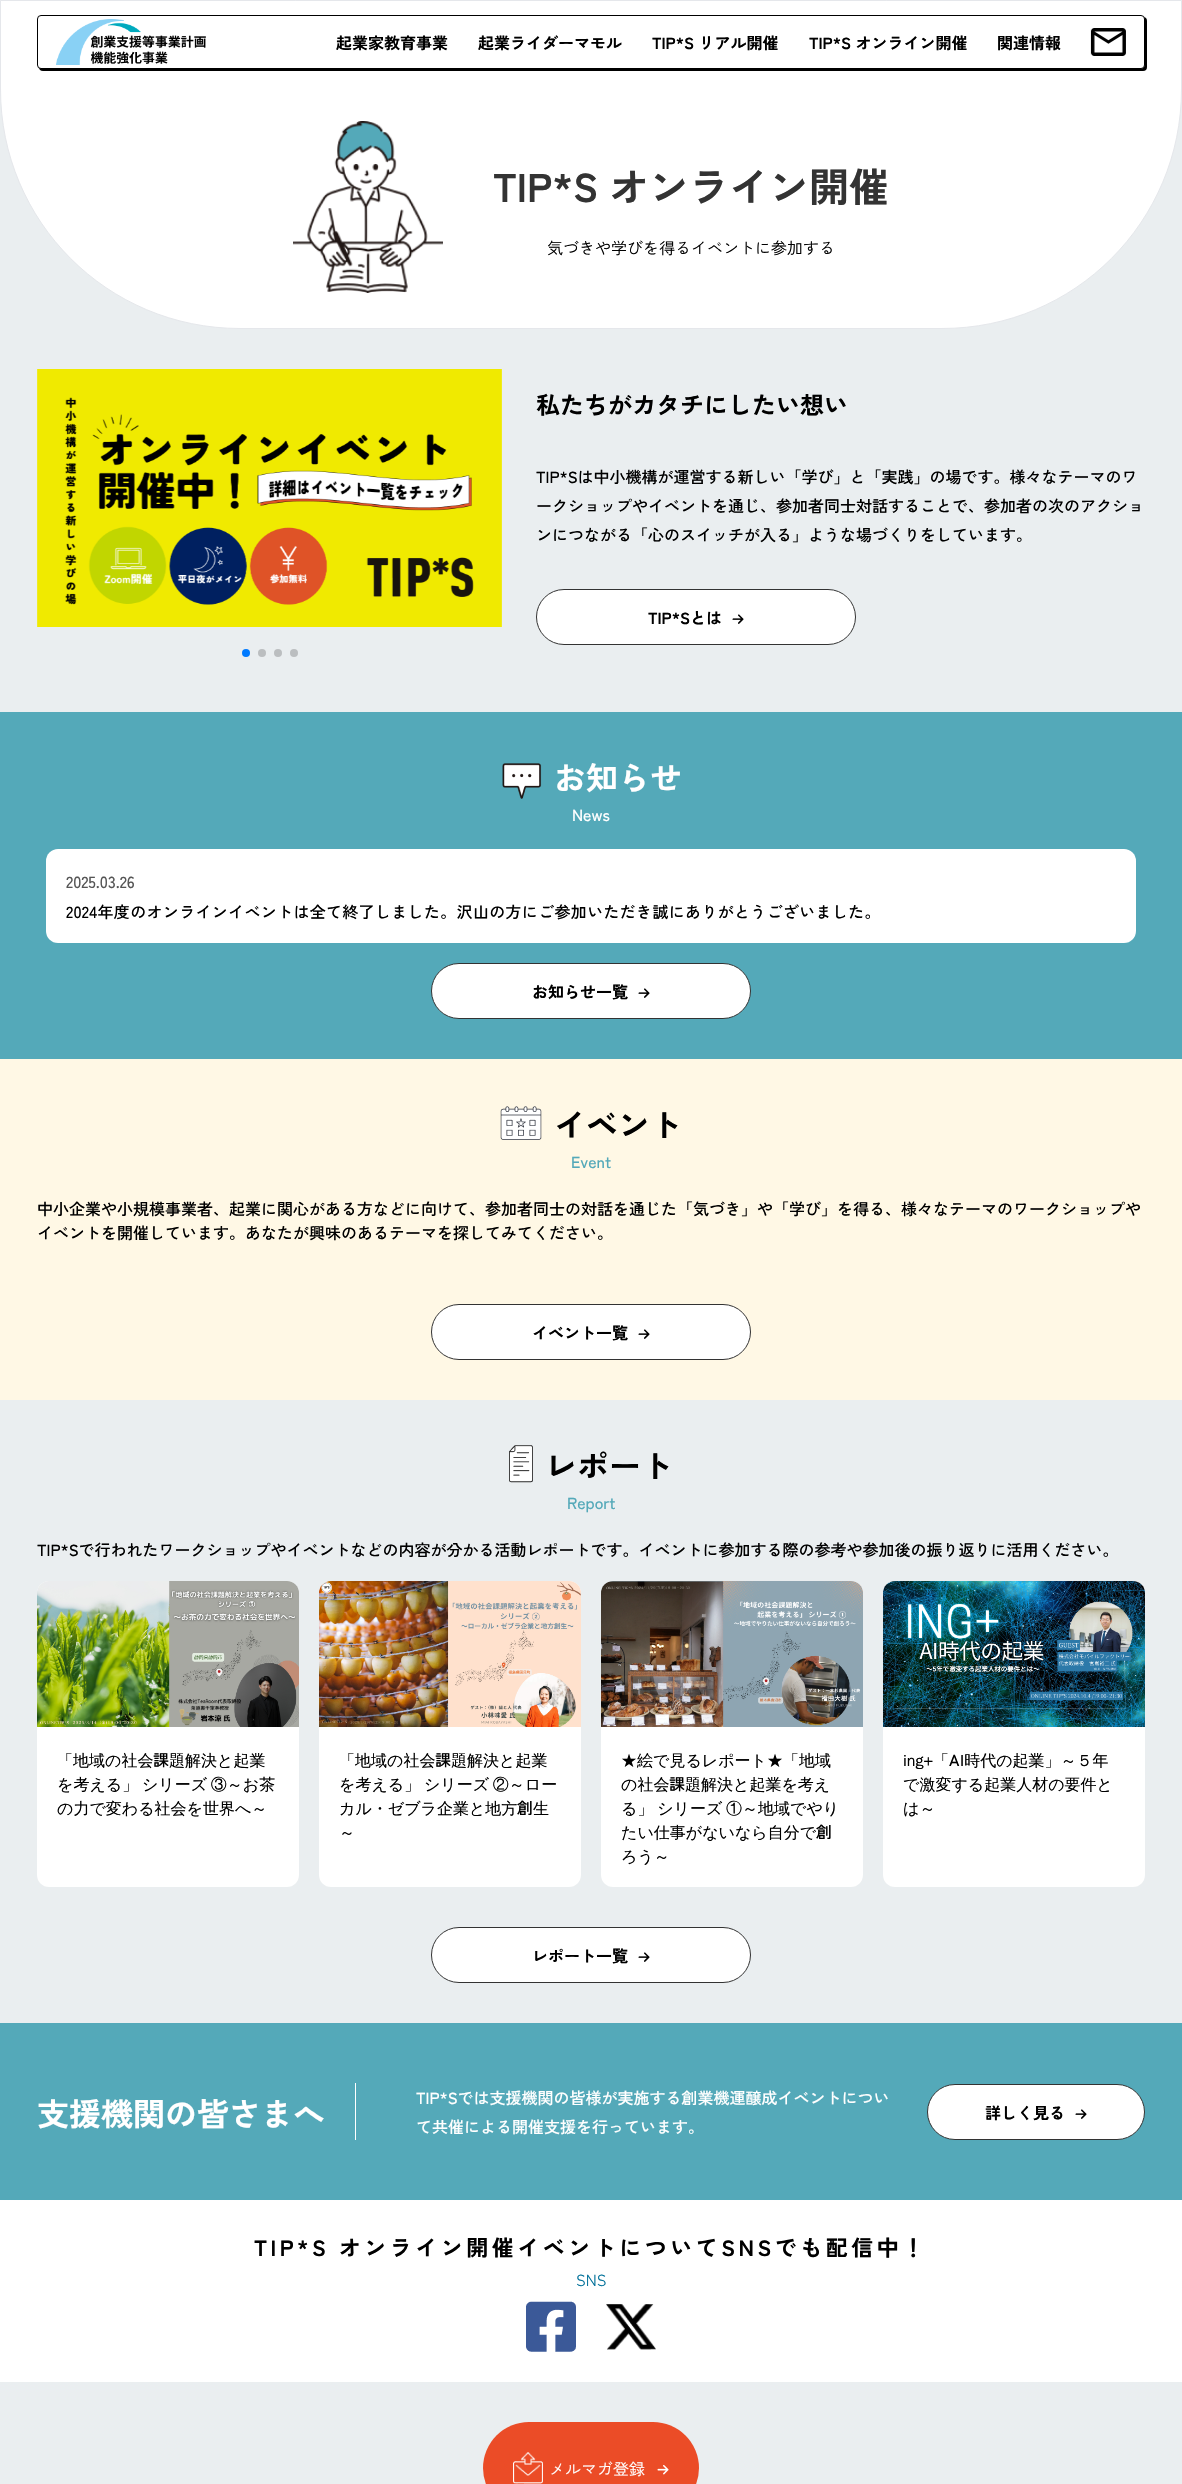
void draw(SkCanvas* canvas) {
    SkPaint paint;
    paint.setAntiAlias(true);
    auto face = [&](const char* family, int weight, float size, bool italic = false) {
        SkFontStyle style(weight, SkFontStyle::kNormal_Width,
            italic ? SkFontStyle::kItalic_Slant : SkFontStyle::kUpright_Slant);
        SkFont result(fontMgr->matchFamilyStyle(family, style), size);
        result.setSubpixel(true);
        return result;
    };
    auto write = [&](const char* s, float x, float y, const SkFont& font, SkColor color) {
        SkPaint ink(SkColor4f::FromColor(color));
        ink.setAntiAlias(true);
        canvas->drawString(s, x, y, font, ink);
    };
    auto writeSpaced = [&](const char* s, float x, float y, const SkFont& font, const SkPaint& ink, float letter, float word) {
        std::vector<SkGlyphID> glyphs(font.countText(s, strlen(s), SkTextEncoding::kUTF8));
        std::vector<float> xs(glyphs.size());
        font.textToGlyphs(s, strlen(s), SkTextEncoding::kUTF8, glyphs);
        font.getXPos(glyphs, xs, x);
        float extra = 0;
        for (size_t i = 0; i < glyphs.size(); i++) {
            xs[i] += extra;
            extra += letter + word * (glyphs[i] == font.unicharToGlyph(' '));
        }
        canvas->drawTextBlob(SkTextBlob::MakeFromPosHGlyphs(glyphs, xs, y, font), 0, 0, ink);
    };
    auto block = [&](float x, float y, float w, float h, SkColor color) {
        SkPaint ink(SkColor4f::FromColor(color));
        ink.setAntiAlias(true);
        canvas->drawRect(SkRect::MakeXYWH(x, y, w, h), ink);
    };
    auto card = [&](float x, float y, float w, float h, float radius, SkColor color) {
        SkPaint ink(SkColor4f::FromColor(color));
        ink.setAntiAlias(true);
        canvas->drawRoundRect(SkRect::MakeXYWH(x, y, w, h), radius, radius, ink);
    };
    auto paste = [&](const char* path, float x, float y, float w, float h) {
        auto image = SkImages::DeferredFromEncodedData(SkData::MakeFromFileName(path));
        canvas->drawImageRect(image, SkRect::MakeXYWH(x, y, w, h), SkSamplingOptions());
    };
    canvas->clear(SkColorSetRGB(234, 238, 240));
    paint.setColor(SK_ColorWHITE);
    canvas->drawPath(SkPathBuilder().moveTo(0.5f, 0.5f).lineTo(1181.5f, 0.5f).lineTo(1181.5f, 89).cubicTo(1181.5f, 221.5f, 1074.5f, 328.5f, 942, 328.5f).lineTo(240, 328.5f).cubicTo(107.5f, 328.5f, 0.5f, 221.5f, 0.5f, 89).close().detach(), paint);
    paint.setStyle(SkPaint::kStroke_Style);
    paint.setStrokeWidth(1);
    paint.setColor(SkColorSetRGB(229, 231, 235));
    canvas->drawPath(SkPathBuilder().moveTo(0.5f, 0.5f).lineTo(1181.5f, 0.5f).lineTo(1181.5f, 89).cubicTo(1181.5f, 221.5f, 1074.5f, 328.5f, 942, 328.5f).lineTo(240, 328.5f).cubicTo(107.5f, 328.5f, 0.5f, 221.5f, 0.5f, 89).close().detach(), paint);
    card(39, 17, 1108, 54, 4, SK_ColorBLACK);
    paint.setStyle(SkPaint::kFill_Style);
    paint.setColor(SK_ColorWHITE);
    canvas->drawRoundRect(SkRect::MakeXYWH(37.5f, 15.5f, 1107, 53), 3.5f, 3.5f, paint);
    paint.setStyle(SkPaint::kStroke_Style);
    paint.setColor(SK_ColorBLACK);
    canvas->drawRoundRect(SkRect::MakeXYWH(37.5f, 15.5f, 1107, 53), 3.5f, 3.5f, paint);
    paste("pic1.png", 56, 19, 150, 46);
    auto kFont1 = face("Zen Kaku Gothic New", 700, 16);
    write("起業家教育事業", 336, 49, kFont1, SK_ColorBLACK);
    write("起業ライダーマモル", 478, 49, kFont1, SK_ColorBLACK);
    write("TIP*S リアル開催", 652, 49, kFont1, SK_ColorBLACK);
    write("TIP*S オンライン開催", 809, 49, kFont1, SK_ColorBLACK);
    write("関連情報", 997, 49, kFont1, SK_ColorBLACK);
    paste("pic2.png", 1090, 28, 36, 28);
    paste("pic3.png", 293, 121, 150, 172);
    auto kFont2 = face("Zen Kaku Gothic New", 700, 40);
    write("TIP*S オンライン開催", 493, 202, kFont2, SkColorSetRGB(51, 51, 51));
    auto kFont3 = face("Zen Kaku Gothic New", 400, 16);
    write("気づきや学びを得るイベントに参加する", 547, 254, kFont3, SK_ColorBLACK);
    paste("pic4.png", 37, 369, 465, 258);
    paint.setStyle(SkPaint::kFill_Style);
    paint.setColor(SkColorSetRGB(0, 122, 255));
    canvas->drawCircle(246, 653, 4, paint);
    paint.setColor(SkColorSetRGB(187, 190, 192));
    canvas->drawCircle(262, 653, 4, paint);
    canvas->drawCircle(278, 653, 4, paint);
    canvas->drawCircle(294, 653, 4, paint);
    auto kFont4 = face("Zen Kaku Gothic New", 700, 24);
    write("私たちがカタチにしたい想い", 536, 414, kFont4, SK_ColorBLACK);
    auto kFont5 = face("Zen Kaku Gothic New", 500, 16);
    write("TIP*Sは中小機構が運営する新しい「学び」と「実践」の場です。様々なテーマのワ", 536, 483, kFont5, SK_ColorBLACK);
    write("ークショップやイベントを通じ、参加者同士対話することで、参加者の次のアクショ", 536, 512, kFont5, SK_ColorBLACK);
    write("ンにつながる「心のスイッチが入る」ような場づくりをしています。", 536, 541, kFont5, SK_ColorBLACK);
    paint.setColor(SK_ColorWHITE);
    canvas->drawRoundRect(SkRect::MakeXYWH(536.5f, 589.5f, 319, 55), 27.5f, 27.5f, paint);
    paint.setStyle(SkPaint::kStroke_Style);
    paint.setColor(SkColorSetRGB(51, 51, 51));
    canvas->drawRoundRect(SkRect::MakeXYWH(536.5f, 589.5f, 319, 55), 27.5f, 27.5f, paint);
    write("TIP*Sとは", 648, 624, kFont1, SK_ColorBLACK);
    paste("pic5.png", 732, 614, 12, 10);
    block(0, 712, 1182, 347, SkColorSetRGB(84, 169, 185));
    paste("pic6.png", 502, 763, 40, 36);
    auto kFont6 = face("Zen Kaku Gothic New", 700, 32);
    write("お知らせ", 554, 790, kFont6, SK_ColorWHITE);
    write("News", 572, 821, kFont5, SK_ColorWHITE);
    card(46, 849, 1090, 94, 12, SK_ColorWHITE);
    write("2025.03.26", 66, 888, kFont5, SkColorSetRGB(85, 85, 85));
    paint.setStyle(SkPaint::kFill_Style);
    paint.setColor(SK_ColorBLACK);
    writeSpaced("2024年度のオンラインイベントは全て終了しました。沢山の方にご参加いただき誠にありがとうございました。", 66, 918, kFont5, paint, 0.32f, 0);
    paint.setColor(SK_ColorWHITE);
    canvas->drawRoundRect(SkRect::MakeXYWH(431.5f, 963.5f, 319, 55), 27.5f, 27.5f, paint);
    paint.setStyle(SkPaint::kStroke_Style);
    paint.setColor(SkColorSetRGB(51, 51, 51));
    canvas->drawRoundRect(SkRect::MakeXYWH(431.5f, 963.5f, 319, 55), 27.5f, 27.5f, paint);
    write("お知らせ一覧", 532, 998, kFont1, SK_ColorBLACK);
    paste("pic5.png", 638, 988, 12, 10);
    block(0, 1059, 1182, 341, SkColorSetRGB(255, 248, 229));
    paste("pic7.png", 500, 1106, 42, 34);
    write("イベント", 554, 1137, kFont6, SK_ColorBLACK);
    write("Event", 571, 1168, kFont5, SkColorSetRGB(84, 169, 185));
    write("中小企業や小規模事業者、起業に関心がある方などに向けて、参加者同士の対話を通じた「気づき」や「学び」を得る、様々なテーマのワークショップや", 37, 1215, kFont5, SK_ColorBLACK);
    write("イベントを開催しています。あなたが興味のあるテーマを探してみてください。", 37, 1239, kFont5, SK_ColorBLACK);
    paint.setStyle(SkPaint::kFill_Style);
    paint.setColor(SK_ColorWHITE);
    canvas->drawRoundRect(SkRect::MakeXYWH(431.5f, 1304.5f, 319, 55), 27.5f, 27.5f, paint);
    paint.setStyle(SkPaint::kStroke_Style);
    paint.setColor(SkColorSetRGB(51, 51, 51));
    canvas->drawRoundRect(SkRect::MakeXYWH(431.5f, 1304.5f, 319, 55), 27.5f, 27.5f, paint);
    write("イベント一覧", 532, 1339, kFont1, SK_ColorBLACK);
    paste("pic5.png", 638, 1329, 12, 10);
    paste("pic8.png", 509, 1445, 24, 38);
    write("レポート", 545, 1478, kFont6, SK_ColorBLACK);
    write("Report", 567, 1509, kFont5, SkColorSetRGB(84, 169, 185));
    write("TIP*Sで行われたワークショップやイベントなどの内容が分かる活動レポートです。イベントに参加する際の参考や参加後の振り返りに活用ください。", 37, 1556, kFont5, SK_ColorBLACK);
    card(37, 1581, 262, 306, 12, SK_ColorWHITE);
    paste("pic9.png", 37, 1581, 262, 146);
    auto kFont7 = face("WenQuanYi Zen Hei", 500, 16);
    write("「地域の社会", 57, 1766, kFont7, SK_ColorBLACK);
    write("課", 153, 1766, kFont5, SK_ColorBLACK);
    write("題解決と起業", 169, 1766, kFont7, SK_ColorBLACK);
    paint.setStyle(SkPaint::kFill_Style);
    paint.setColor(SK_ColorBLACK);
    writeSpaced("を考える」 シリーズ ③～お茶", 57, 1790, kFont7, paint, 0, -1);
    write("の力で変わる社会を世界へ～", 57, 1814, kFont7, SK_ColorBLACK);
    card(319, 1581, 262, 306, 12, SK_ColorWHITE);
    paste("pic10.png", 319, 1581, 262, 146);
    write("「地域の社会", 339, 1766, kFont7, SK_ColorBLACK);
    write("課", 435, 1766, kFont5, SK_ColorBLACK);
    write("題解決と起業", 451, 1766, kFont7, SK_ColorBLACK);
    writeSpaced("を考える」 シリーズ ②～ロー", 339, 1790, kFont7, paint, 0, -1);
    write("カル・ゼブラ企業と地方", 339, 1814, kFont7, SK_ColorBLACK);
    write("創", 517, 1814, kFont5, SK_ColorBLACK);
    write("生", 533, 1814, kFont7, SK_ColorBLACK);
    write("～", 339, 1838, kFont7, SK_ColorBLACK);
    card(601, 1581, 262, 306, 12, SK_ColorWHITE);
    paste("pic11.png", 601, 1581, 262, 146);
    write("★絵で見るレポート★「地域", 621, 1766, kFont7, SK_ColorBLACK);
    write("の社会", 621, 1790, kFont7, SK_ColorBLACK);
    write("課", 669, 1790, kFont5, SK_ColorBLACK);
    write("題解決と起業を考え", 685, 1790, kFont7, SK_ColorBLACK);
    writeSpaced("る」 シリーズ ①～地域でやり", 621, 1814, kFont7, paint, 0, -1);
    write("たい仕事がないなら自分で", 621, 1838, kFont7, SK_ColorBLACK);
    write("創", 816, 1838, kFont5, SK_ColorBLACK);
    write("ろう～", 621, 1862, kFont7, SK_ColorBLACK);
    card(883, 1581, 262, 306, 12, SK_ColorWHITE);
    paste("pic12.png", 883, 1581, 262, 146);
    write("ing+「", 903, 1766, kFont7, SK_ColorBLACK);
    write("A", 949, 1766, kFont5, SK_ColorBLACK);
    write("I時代の起業」～５年", 960, 1766, kFont7, SK_ColorBLACK);
    write("で激変する起業人材の要件と", 903, 1790, kFont7, SK_ColorBLACK);
    write("は～", 903, 1814, kFont7, SK_ColorBLACK);
    paint.setColor(SK_ColorWHITE);
    canvas->drawRoundRect(SkRect::MakeXYWH(431.5f, 1927.5f, 319, 55), 27.5f, 27.5f, paint);
    paint.setStyle(SkPaint::kStroke_Style);
    paint.setColor(SkColorSetRGB(51, 51, 51));
    canvas->drawRoundRect(SkRect::MakeXYWH(431.5f, 1927.5f, 319, 55), 27.5f, 27.5f, paint);
    write("レポート一覧", 532, 1962, kFont1, SK_ColorBLACK);
    paste("pic5.png", 638, 1952, 12, 10);
    block(0, 2023, 1182, 177, SkColorSetRGB(84, 169, 185));
    write("支援機関の皆さまへ", 37, 2126, kFont6, SK_ColorWHITE);
    block(355, 2083, 1, 57, SK_ColorWHITE);
    write("TIP*Sでは支援機関の皆様が実施する創業機運醸成イベントについ", 416, 2104, kFont5, SK_ColorWHITE);
    write("て共催による開催支援を行っています。", 416, 2133, kFont5, SK_ColorWHITE);
    paint.setStyle(SkPaint::kFill_Style);
    paint.setColor(SK_ColorWHITE);
    canvas->drawRoundRect(SkRect::MakeXYWH(927.5f, 2084.5f, 217, 55), 27.5f, 27.5f, paint);
    paint.setStyle(SkPaint::kStroke_Style);
    paint.setColor(SkColorSetRGB(51, 51, 51));
    canvas->drawRoundRect(SkRect::MakeXYWH(927.5f, 2084.5f, 217, 55), 27.5f, 27.5f, paint);
    write("詳しく見る", 985, 2119, kFont1, SK_ColorBLACK);
    paste("pic5.png", 1075, 2109, 12, 10);
    block(0, 2200, 1182, 182, SK_ColorWHITE);
    auto kFont8 = face("Zen Kaku Gothic New", 700, 22);
    paint.setStyle(SkPaint::kFill_Style);
    paint.setColor(SK_ColorBLACK);
    writeSpaced("TIP*S オンライン開催イベントについてSNSでも配信中！", 254, 2256, kFont8, paint, 3.5f, 0);
    write("SNS", 576, 2286, kFont3, SkColorSetRGB(0, 112, 153));
    paste("pic13.png", 526, 2301, 50, 51);
    paste("pic14.png", 606, 2304, 50, 46);
    card(483, 2422, 216, 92, 46, SkColorSetRGB(235, 76, 39));
    paste("pic15.png", 513, 2452, 30, 32);
    write("メルマガ登録", 549, 2475, kFont3, SK_ColorWHITE);
    paste("pic16.png", 657, 2465, 12, 10);
}
